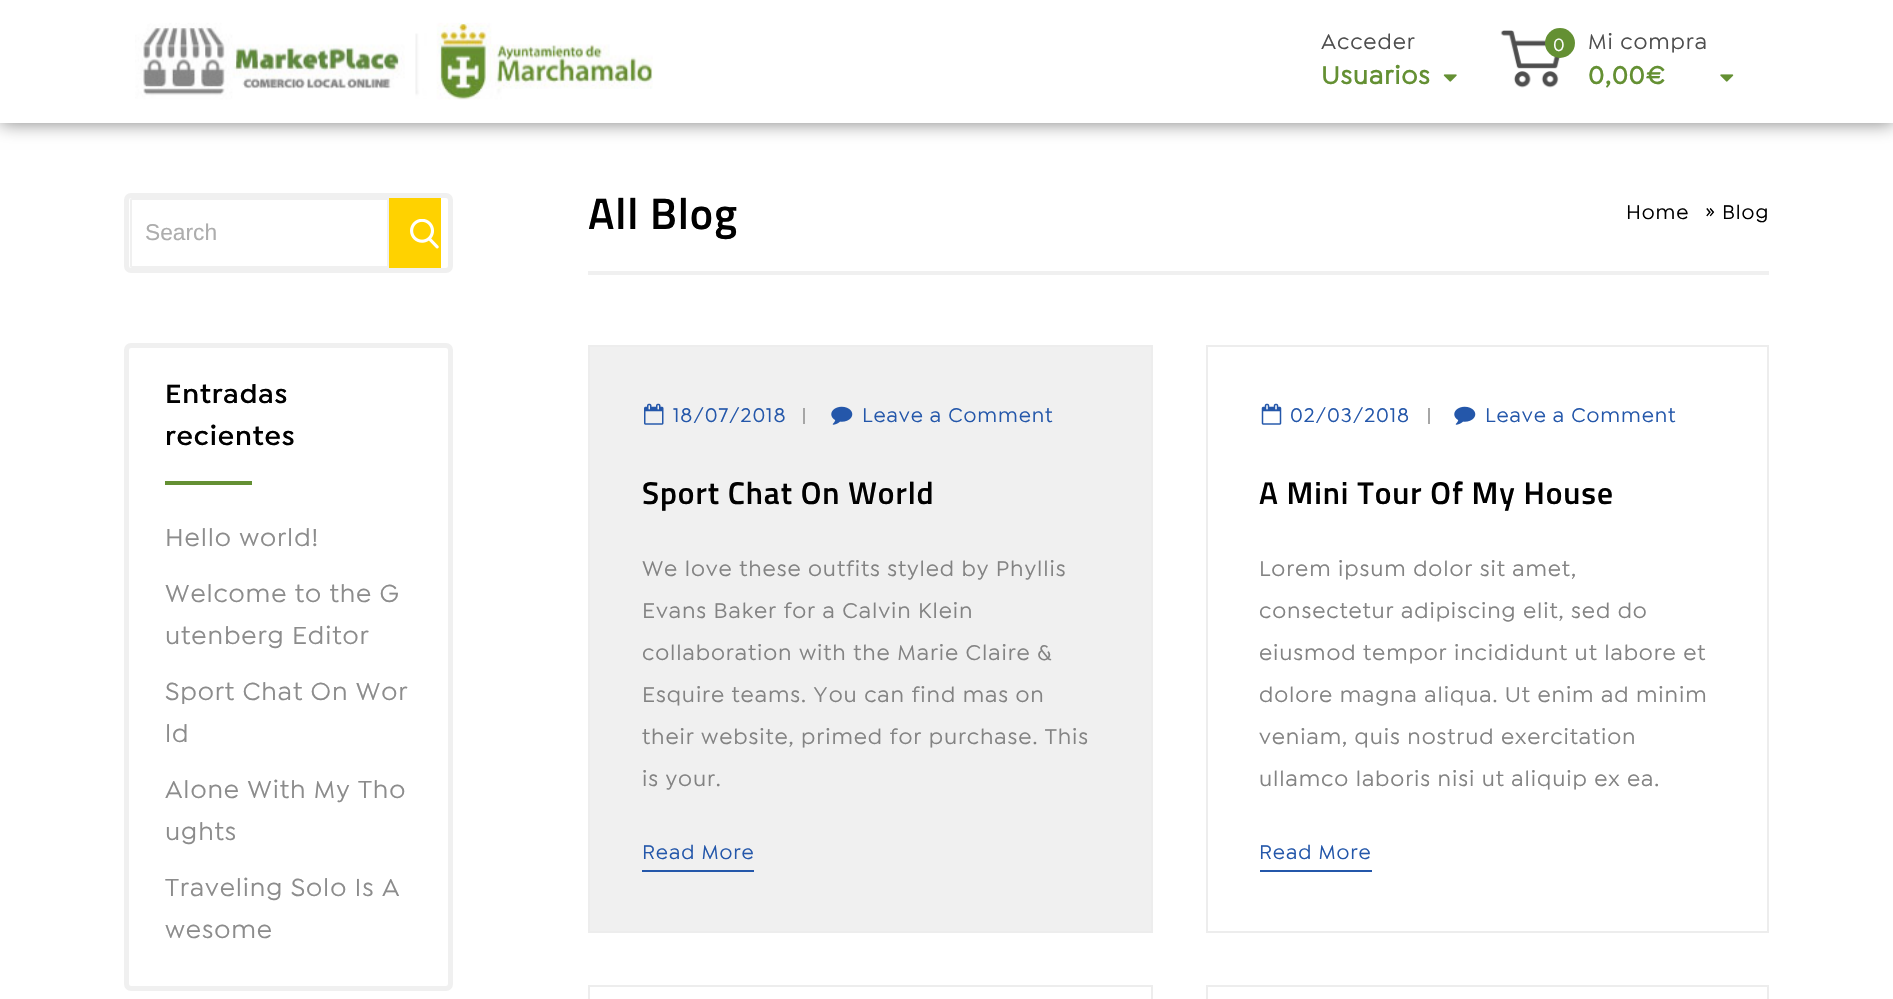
void draw(SkCanvas* canvas) {
    SkPaint paint;
    paint.setAntiAlias(true);
    auto face = [&](const char* family, int weight, float size, bool italic = false) {
        SkFontStyle style(weight, SkFontStyle::kNormal_Width,
            italic ? SkFontStyle::kItalic_Slant : SkFontStyle::kUpright_Slant);
        SkFont result(fontMgr->matchFamilyStyle(family, style), size);
        result.setSubpixel(true);
        return result;
    };
    auto write = [&](const char* s, float x, float y, const SkFont& font, SkColor color) {
        SkPaint ink(SkColor4f::FromColor(color));
        ink.setAntiAlias(true);
        canvas->drawString(s, x, y, font, ink);
    };
    auto writeSpaced = [&](const char* s, float x, float y, const SkFont& font, const SkPaint& ink, float letter, float word) {
        std::vector<SkGlyphID> glyphs(font.countText(s, strlen(s), SkTextEncoding::kUTF8));
        std::vector<float> xs(glyphs.size());
        font.textToGlyphs(s, strlen(s), SkTextEncoding::kUTF8, glyphs);
        font.getXPos(glyphs, xs, x);
        float extra = 0;
        for (size_t i = 0; i < glyphs.size(); i++) {
            xs[i] += extra;
            extra += letter + word * (glyphs[i] == font.unicharToGlyph(' '));
        }
        canvas->drawTextBlob(SkTextBlob::MakeFromPosHGlyphs(glyphs, xs, y, font), 0, 0, ink);
    };
    auto block = [&](float x, float y, float w, float h, SkColor color) {
        SkPaint ink(SkColor4f::FromColor(color));
        ink.setAntiAlias(true);
        canvas->drawRect(SkRect::MakeXYWH(x, y, w, h), ink);
    };
    auto paste = [&](const char* path, float x, float y, float w, float h) {
        auto image = SkImages::DeferredFromEncodedData(SkData::MakeFromFileName(path));
        canvas->drawImageRect(image, SkRect::MakeXYWH(x, y, w, h), SkSamplingOptions());
    };
    canvas->clear(SK_ColorWHITE);
    paint.setColor(SkColorSetARGB(128, 0, 0, 0));
    paint.setMaskFilter(SkMaskFilter::MakeBlur(kNormal_SkBlurStyle, 9));
    canvas->drawRect(SkRect::MakeXYWH(0, 0, 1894, 123), paint);
    paint.setMaskFilter(nullptr);
    block(0, 0, 1893, 123, SK_ColorWHITE);
    paste("pic1.png", 135, 22, 518, 78);
    auto kFont1 = face("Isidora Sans", 500, 22.75f);
    paint.setColor(SkColorSetRGB(78, 78, 78));
    writeSpaced("Acceder", 1321, 49, kFont1, paint, 0.9f, 0);
    auto kFont2 = face("Isidora Sans", 700, 26.25f);
    paint.setColor(SkColorSetRGB(100, 144, 51));
    writeSpaced("Usuarios", 1321, 84, kFont2, paint, 0.9f, 0);
    paste("pic2.png", 1443, 74, 14, 8);
    paste("pic3.png", 1500, 30, 60, 58);
    canvas->drawCircle(1560, 43, 15, paint);
    auto kFont3 = face("Isidora Sans", 500, 19);
    paint.setColor(SK_ColorWHITE);
    writeSpaced("0", 1553, 51, kFont3, paint, 0.9f, 0);
    paint.setColor(SkColorSetRGB(78, 78, 78));
    writeSpaced("Mi compra", 1588, 49, kFont1, paint, 0.9f, 0);
    paint.setColor(SkColorSetRGB(100, 144, 51));
    writeSpaced("0,00€", 1588, 84, kFont2, paint, 0.9f, 0);
    paste("pic4.png", 1720, 74, 14, 8);
    paint.setStyle(SkPaint::kStroke_Style);
    paint.setStrokeWidth(5);
    paint.setColor(SkColorSetRGB(240, 240, 240));
    canvas->drawRoundRect(SkRect::MakeXYWH(126.5f, 195.5f, 324, 75), 4.5f, 4.5f, paint);
    paint.setStyle(SkPaint::kFill_Style);
    canvas->drawPath(SkPathBuilder(SkPathFillType::kEvenOdd).moveTo(132, 198).cubicTo(131, 198, 130, 199, 130, 200).lineTo(130, 266).cubicTo(130, 267, 131, 268, 132, 268).lineTo(389, 268).lineTo(389, 198).close().moveTo(132, 200).lineTo(132, 266).lineTo(387, 266).lineTo(387, 200).close().detach(), paint);
    auto kFont4 = face("Liberation Sans", 400, 22.75f);
    write("Search", 145, 240, kFont4, SkColorSetRGB(173, 173, 173));
    block(389, 198, 52, 70, SkColorSetRGB(255, 210, 0));
    paste("pic5.png", 410, 219, 29, 30);
    paint.setStyle(SkPaint::kStroke_Style);
    canvas->drawRoundRect(SkRect::MakeXYWH(126.5f, 345.5f, 324, 643), 4.5f, 4.5f, paint);
    auto kFont5 = face("Isidora Sans", 600, 28);
    paint.setStyle(SkPaint::kFill_Style);
    paint.setColor(SK_ColorBLACK);
    writeSpaced("Entradas", 165, 403, kFont5, paint, 0.9f, 0);
    writeSpaced("recientes", 165, 445, kFont5, paint, 0.9f, 0);
    block(165, 481, 87, 4, SkColorSetRGB(100, 144, 51));
    auto kFont6 = face("Isidora Sans", 500, 26.25f);
    paint.setColor(SkColorSetRGB(140, 140, 140));
    writeSpaced("Hello world!", 165, 546, kFont6, paint, 0.9f, 0);
    writeSpaced("Welcome to the G", 165, 602, kFont6, paint, 0.9f, 0);
    writeSpaced("utenberg Editor", 165, 644, kFont6, paint, 0.9f, 0);
    writeSpaced("Sport Chat On Wor", 165, 700, kFont6, paint, 0.9f, 0);
    writeSpaced("ld", 165, 742, kFont6, paint, 0.9f, 0);
    writeSpaced("Alone With My Tho", 165, 798, kFont6, paint, 0.9f, 0);
    writeSpaced("ughts", 165, 840, kFont6, paint, 0.9f, 0);
    writeSpaced("Traveling Solo Is A", 165, 896, kFont6, paint, 0.9f, 0);
    writeSpaced("wesome", 165, 938, kFont6, paint, 0.9f, 0);
    block(588, 271, 1181, 4, SkColorSetRGB(240, 240, 240));
    auto kFont7 = face("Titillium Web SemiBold", 600, 44);
    paint.setColor(SK_ColorBLACK);
    writeSpaced("All Blog", 588, 229, kFont7, paint, 0.9f, 0);
    auto kFont8 = face("Isidora Sans", 500, 21);
    writeSpaced("Home", 1626, 219, kFont8, paint, 0.9f, 0);
    writeSpaced("»", 1705, 219, kFont1, paint, 0.9f, 0);
    writeSpaced("Blog", 1722, 219, kFont8, paint, 0.9f, 0);
    paint.setColor(SkColorSetRGB(240, 240, 240));
    canvas->drawRect(SkRect::MakeXYWH(589, 346, 563, 586), paint);
    paint.setStyle(SkPaint::kStroke_Style);
    paint.setStrokeWidth(2);
    paint.setColor(SkColorSetRGB(237, 237, 237));
    canvas->drawRect(SkRect::MakeXYWH(589, 346, 563, 586), paint);
    paste("pic6.png", 644, 403, 20, 22);
    paint.setStyle(SkPaint::kFill_Style);
    paint.setColor(SkColorSetRGB(36, 87, 170));
    writeSpaced("18/07/2018", 673, 422, kFont8, paint, 0.9f, 0);
    block(803, 408, 2, 16, SkColorSetRGB(166, 166, 166));
    paste("pic7.png", 831, 406, 22, 19);
    writeSpaced("Leave a Comment", 862, 422, kFont8, paint, 0.9f, 0);
    auto kFont9 = face("Titillium Web SemiBold", 600, 31.5f);
    paint.setColor(SK_ColorBLACK);
    writeSpaced("Sport Chat On World", 642, 504, kFont9, paint, 0.9f, 0);
    paint.setColor(SkColorSetRGB(131, 131, 131));
    writeSpaced("We love these outfits styled by Phyllis", 642, 576, kFont1, paint, 0.9f, 0);
    writeSpaced("Evans Baker for a Calvin Klein", 642, 618, kFont1, paint, 0.9f, 0);
    writeSpaced("collaboration with the Marie Claire &", 642, 660, kFont1, paint, 0.9f, 0);
    writeSpaced("Esquire teams. You can find mas on", 642, 702, kFont1, paint, 0.9f, 0);
    writeSpaced("their website, primed for purchase. This", 642, 744, kFont1, paint, 0.9f, 0);
    writeSpaced("is your.", 642, 786, kFont1, paint, 0.9f, 0);
    paint.setColor(SkColorSetRGB(36, 87, 170));
    writeSpaced("Read More", 642, 859, kFont8, paint, 0.9f, 0);
    block(642, 870, 112, 2, SkColorSetRGB(36, 87, 170));
    paint.setStyle(SkPaint::kStroke_Style);
    paint.setColor(SkColorSetRGB(237, 237, 237));
    canvas->drawRect(SkRect::MakeXYWH(1207, 346, 561, 586), paint);
    paste("pic8.png", 1261, 403, 21, 22);
    paint.setStyle(SkPaint::kFill_Style);
    paint.setColor(SkColorSetRGB(36, 87, 170));
    writeSpaced("02/03/2018", 1290, 422, kFont8, paint, 0.9f, 0);
    block(1428, 408, 2, 16, SkColorSetRGB(166, 166, 166));
    paste("pic9.png", 1454, 406, 22, 19);
    writeSpaced("Leave a Comment", 1485, 422, kFont8, paint, 0.9f, 0);
    paint.setColor(SK_ColorBLACK);
    writeSpaced("A Mini Tour Of My House", 1259, 504, kFont9, paint, 0.9f, 0);
    paint.setColor(SkColorSetRGB(131, 131, 131));
    writeSpaced("Lorem ipsum dolor sit amet,", 1259, 576, kFont1, paint, 0.9f, 0);
    writeSpaced("consectetur adipiscing elit, sed do", 1259, 618, kFont1, paint, 0.9f, 0);
    writeSpaced("eiusmod tempor incididunt ut labore et", 1259, 660, kFont1, paint, 0.9f, 0);
    writeSpaced("dolore magna aliqua. Ut enim ad minim", 1259, 702, kFont1, paint, 0.9f, 0);
    writeSpaced("veniam, quis nostrud exercitation", 1259, 744, kFont1, paint, 0.9f, 0);
    writeSpaced("ullamco laboris nisi ut aliquip ex ea.", 1259, 786, kFont1, paint, 0.9f, 0);
    paint.setColor(SkColorSetRGB(36, 87, 170));
    writeSpaced("Read More", 1259, 859, kFont8, paint, 0.9f, 0);
    block(1260, 870, 112, 2, SkColorSetRGB(36, 87, 170));
    paint.setStyle(SkPaint::kStroke_Style);
    paint.setColor(SkColorSetRGB(237, 237, 237));
    canvas->drawRect(SkRect::MakeXYWH(589, 986, 563, 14), paint);
    canvas->drawRect(SkRect::MakeXYWH(1207, 986, 561, 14), paint);
}
